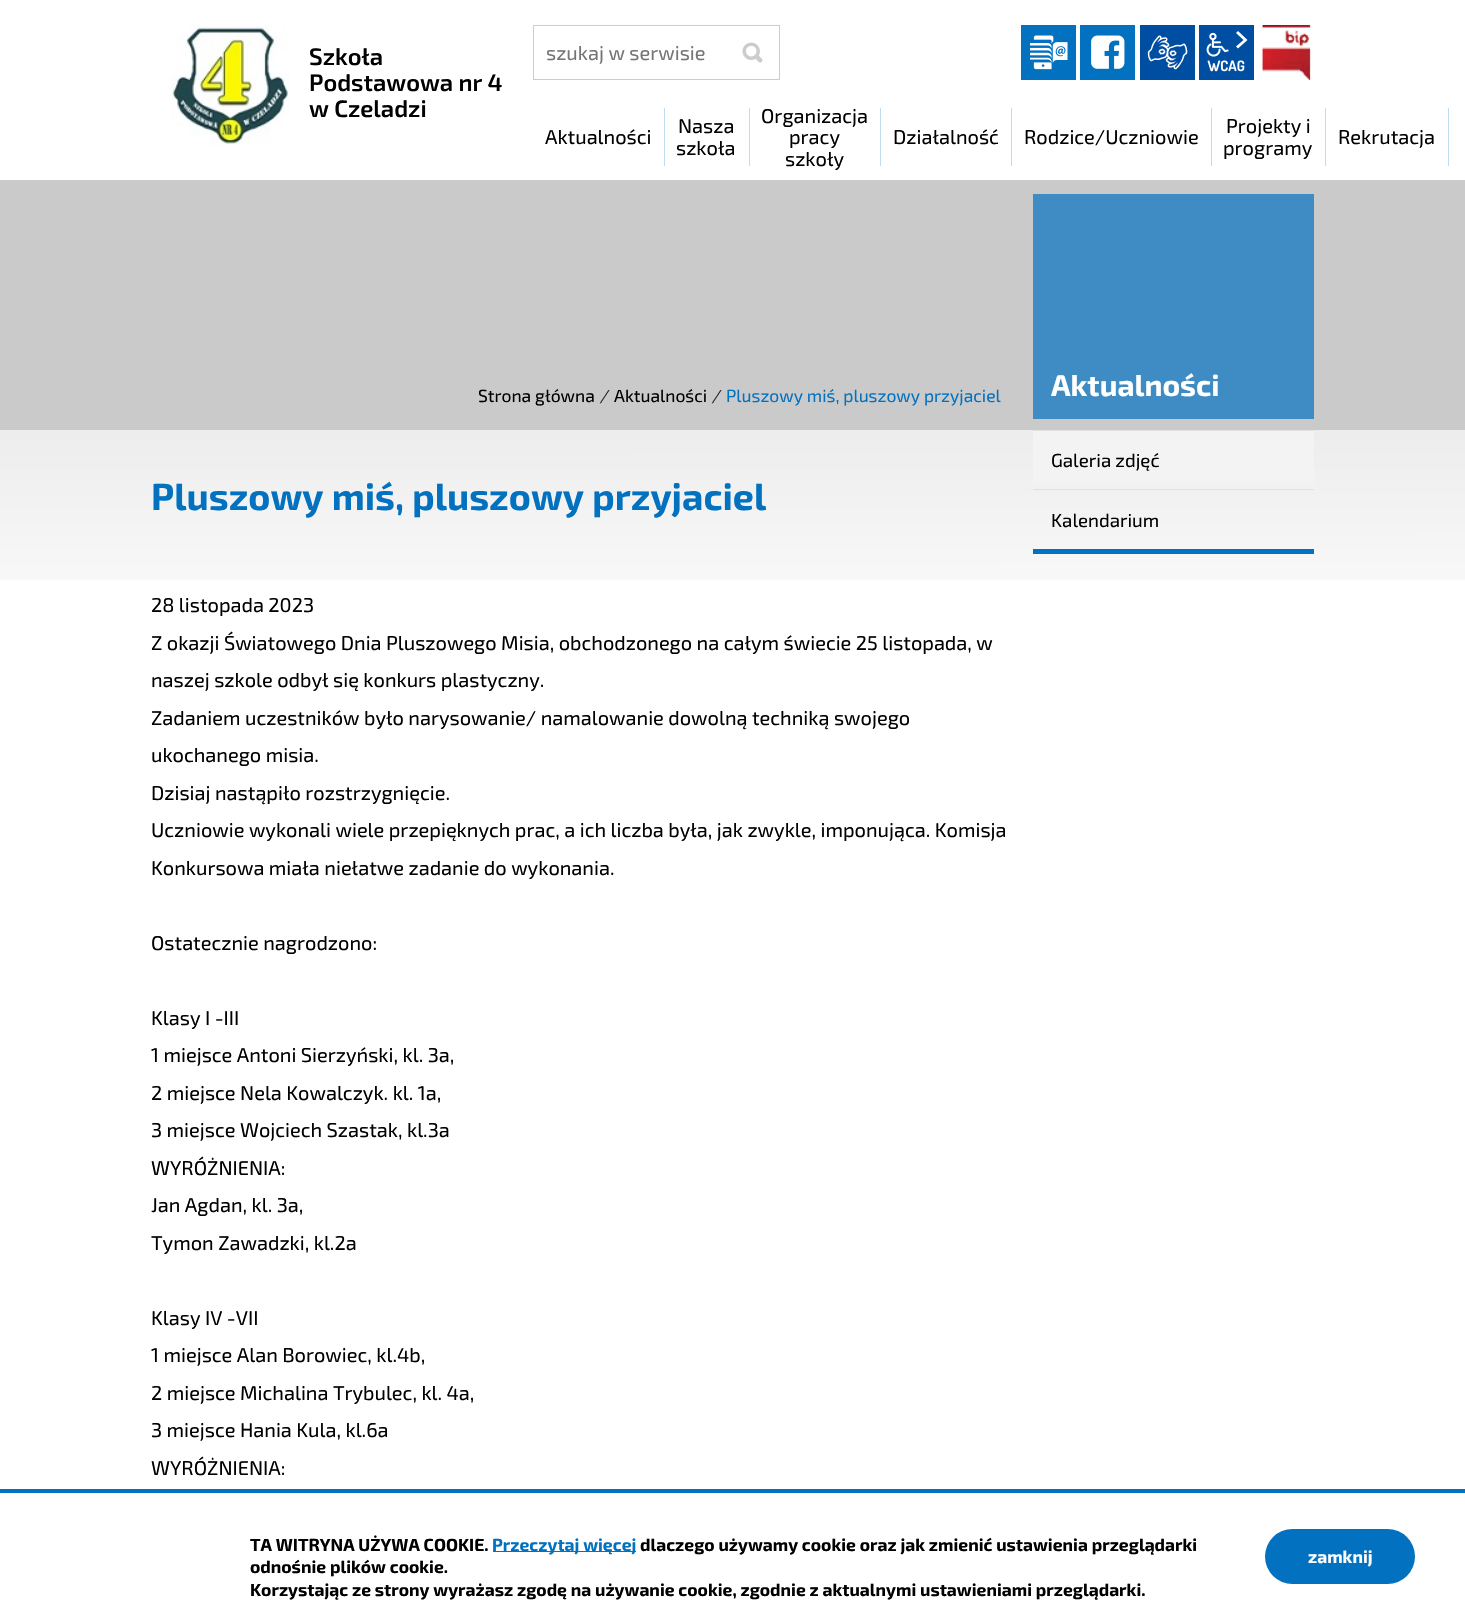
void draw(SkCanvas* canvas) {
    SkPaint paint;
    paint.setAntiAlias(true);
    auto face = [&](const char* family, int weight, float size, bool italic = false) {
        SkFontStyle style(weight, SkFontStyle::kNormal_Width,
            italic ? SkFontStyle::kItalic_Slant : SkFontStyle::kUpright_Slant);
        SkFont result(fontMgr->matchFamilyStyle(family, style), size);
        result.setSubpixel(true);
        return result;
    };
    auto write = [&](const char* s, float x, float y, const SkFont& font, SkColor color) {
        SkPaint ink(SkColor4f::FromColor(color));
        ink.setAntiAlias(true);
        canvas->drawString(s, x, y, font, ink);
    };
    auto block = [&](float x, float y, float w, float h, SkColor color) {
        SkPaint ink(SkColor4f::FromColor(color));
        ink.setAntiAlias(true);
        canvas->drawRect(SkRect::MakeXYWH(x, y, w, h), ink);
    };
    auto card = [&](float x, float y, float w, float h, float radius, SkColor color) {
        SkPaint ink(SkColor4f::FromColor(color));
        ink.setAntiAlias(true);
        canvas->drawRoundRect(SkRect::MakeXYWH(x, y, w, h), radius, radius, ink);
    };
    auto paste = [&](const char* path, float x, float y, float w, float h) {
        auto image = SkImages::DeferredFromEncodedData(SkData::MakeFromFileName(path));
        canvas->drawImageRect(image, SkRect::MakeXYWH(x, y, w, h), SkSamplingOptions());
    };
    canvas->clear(SK_ColorWHITE);
    paste("pic1.png", 170, 25, 120, 120);
    auto kFont1 = face("Exo 2", 600, 23.75f);
    write("Szkoła", 309, 65, kFont1, SK_ColorBLACK);
    write("Podstawowa nr 4", 309, 91, kFont1, SK_ColorBLACK);
    write("w Czeladzi", 309, 117, kFont1, SK_ColorBLACK);
    paint.setStyle(SkPaint::kStroke_Style);
    paint.setStrokeWidth(1);
    paint.setColor(SkColorSetRGB(204, 204, 204));
    canvas->drawRect(SkRect::MakeXYWH(533.5f, 25.5f, 246, 54), paint);
    auto kFont2 = face("Exo 2", 400, 20);
    write("szukaj w serwisie", 546, 60, kFont2, SkColorSetRGB(117, 117, 117));
    paste("pic2.png", 742, 42, 21, 21);
    block(1021, 25, 55, 55, SkColorSetRGB(2, 113, 192));
    paste("pic3.png", 1030, 35, 38, 35);
    block(1080, 25, 55, 55, SkColorSetRGB(2, 113, 192));
    paste("pic4.png", 1091, 35, 34, 34);
    block(1140, 25, 55, 55, SkColorSetRGB(0, 78, 162));
    paste("pic5.png", 1147, 35, 41, 35);
    block(1199, 25, 55, 55, SkColorSetRGB(0, 78, 162));
    paste("pic6.png", 1206, 32, 39, 40);
    paint.setStyle(SkPaint::kFill_Style);
    paint.setColor(SK_ColorWHITE);
    canvas->drawPath(SkPathBuilder().moveTo(1238, 48.5f).lineTo(1247.5f, 40).lineTo(1238, 31).lineTo(1236, 33).lineTo(1243.5f, 40).lineTo(1236, 46.5f).close().detach(), paint);
    paste("pic7.png", 1262, 25, 49, 55);
    write("Aktualności", 545, 144, kFont2, SK_ColorBLACK);
    block(664, 108, 1, 58, SkColorSetRGB(192, 220, 239));
    write("Nasza", 678, 133, kFont2, SK_ColorBLACK);
    write("szkoła", 676, 155, kFont2, SK_ColorBLACK);
    block(749, 108, 1, 58, SkColorSetRGB(192, 220, 239));
    write("Organizacja", 761, 123, kFont2, SK_ColorBLACK);
    write("pracy", 789, 144, kFont2, SK_ColorBLACK);
    write("szkoły", 785, 166, kFont2, SK_ColorBLACK);
    block(880, 108, 1, 58, SkColorSetRGB(192, 220, 239));
    write("Działalność", 893, 144, kFont2, SK_ColorBLACK);
    block(1011, 108, 1, 58, SkColorSetRGB(192, 220, 239));
    write("Rodzice/Uczniowie", 1024, 144, kFont2, SK_ColorBLACK);
    block(1211, 108, 1, 58, SkColorSetRGB(192, 220, 239));
    write("Projekty i", 1226, 133, kFont2, SK_ColorBLACK);
    write("programy", 1223, 155, kFont2, SK_ColorBLACK);
    block(1325, 108, 1, 58, SkColorSetRGB(192, 220, 239));
    write("Rekrutacja", 1338, 144, kFont2, SK_ColorBLACK);
    block(1448, 108, 1, 58, SkColorSetRGB(192, 220, 239));
    block(0, 180, 1465, 400, SkColorSetRGB(202, 202, 202));
    auto kFont3 = face("Exo 2", 400, 17.5f);
    write("Strona główna", 478, 402, kFont3, SK_ColorBLACK);
    auto kFont4 = face("Exo 2", 400, 17.5f, true);
    write("/", 600, 402, kFont4, SkColorSetRGB(51, 51, 51));
    write("Aktualności", 614, 402, kFont3, SK_ColorBLACK);
    write("/", 712, 402, kFont4, SkColorSetRGB(51, 51, 51));
    write("Pluszowy miś, pluszowy przyjaciel", 726, 402, kFont3, SkColorSetRGB(2, 113, 192));
    block(1033, 194, 281, 225, SkColorSetRGB(62, 140, 195));
    auto kFont5 = face("Exo 2", 700, 30);
    write("Aktualności", 1051, 396, kFont5, SK_ColorWHITE);
    {
        const SkColor colors[] = {SkColorSetARGB(166, 255, 255, 255), SK_ColorWHITE};
        const float stops[] = {0, 0.16f};
        const SkPoint ends[] = {{732, 430}, {733, 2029}};
        paint.setShader(SkGradientShader::MakeLinear(ends, colors, stops, 2, SkTileMode::kClamp));
        paint.setAlpha(255);
    }
    canvas->drawRect(SkRect::MakeXYWH(0, 430, 1465, 150), paint);
    auto kFont6 = face("Exo 2", 700, 37.5f);
    write("Pluszowy miś, pluszowy przyjaciel", 151, 510, kFont6, SkColorSetRGB(2, 113, 192));
    write("28 listopada 2023", 151, 612, kFont2, SK_ColorBLACK);
    write("Z okazji Światowego Dnia Pluszowego Misia, obchodzonego na całym świecie 25 listopada, w", 151, 650, kFont2, SK_ColorBLACK);
    write("naszej szkole odbył się konkurs plastyczny.", 151, 687, kFont2, SK_ColorBLACK);
    write("Zadaniem uczestników było narysowanie/ namalowanie dowolną techniką swojego", 151, 725, kFont2, SK_ColorBLACK);
    write("ukochanego misia.", 151, 762, kFont2, SK_ColorBLACK);
    write("Dzisiaj nastąpiło rozstrzygnięcie.", 151, 800, kFont2, SK_ColorBLACK);
    write("Uczniowie wykonali wiele przepięknych prac, a ich liczba była, jak zwykle, imponująca. Komisja", 151, 837, kFont2, SK_ColorBLACK);
    write("Konkursowa miała niełatwe zadanie do wykonania.", 151, 875, kFont2, SK_ColorBLACK);
    write("Ostatecznie nagrodzono:", 151, 950, kFont2, SK_ColorBLACK);
    write("Klasy I -III", 151, 1025, kFont2, SK_ColorBLACK);
    write("1 miejsce Antoni Sierzyński, kl. 3a,", 151, 1062, kFont2, SK_ColorBLACK);
    write("2 miejsce Nela Kowalczyk. kl. 1a,", 151, 1100, kFont2, SK_ColorBLACK);
    write("3 miejsce Wojciech Szastak, kl.3a", 151, 1137, kFont2, SK_ColorBLACK);
    write("WYRÓŻNIENIA:", 151, 1175, kFont2, SK_ColorBLACK);
    write("Jan Agdan, kl. 3a,", 151, 1212, kFont2, SK_ColorBLACK);
    write("Tymon Zawadzki, kl.2a", 151, 1250, kFont2, SK_ColorBLACK);
    write("Klasy IV -VII", 151, 1325, kFont2, SK_ColorBLACK);
    write("1 miejsce Alan Borowiec, kl.4b,", 151, 1362, kFont2, SK_ColorBLACK);
    write("2 miejsce Michalina Trybulec, kl. 4a,", 151, 1400, kFont2, SK_ColorBLACK);
    write("3 miejsce Hania Kula, kl.6a", 151, 1437, kFont2, SK_ColorBLACK);
    write("WYRÓŻNIENIA:", 151, 1475, kFont2, SK_ColorBLACK);
    block(1033, 431, 281, 53, SkColorSetRGB(243, 243, 243));
    block(1033, 549, 281, 5, SkColorSetRGB(2, 113, 192));
    block(1033, 430, 281, 1, SkColorSetRGB(225, 225, 225));
    auto kFont7 = face("Exo 2", 400, 18.75f);
    write("Galeria zdjęć", 1051, 467, kFont7, SK_ColorBLACK);
    block(1033, 489, 281, 1, SkColorSetRGB(225, 225, 225));
    write("Kalendarium", 1051, 527, kFont7, SK_ColorBLACK);
    block(0, 1489, 1465, 4, SkColorSetRGB(2, 113, 192));
    auto kFont8 = face("Exo 2", 700, 17.5f);
    write("TA WITRYNA UŻYWA COOKIE.", 250, 1551, kFont8, SK_ColorBLACK);
    block(493, 1551, 143, 1, SkColorSetRGB(2, 113, 192));
    write("Przeczytaj więcej", 492, 1551, kFont8, SkColorSetRGB(2, 113, 192));
    write("dlaczego używamy cookie oraz jak zmienić ustawienia przeglądarki", 640, 1551, kFont8, SK_ColorBLACK);
    write("odnośnie plików cookie.", 250, 1573, kFont8, SK_ColorBLACK);
    write("Korzystając ze strony wyrażasz zgodę na używanie cookie, zgodnie z aktualnymi ustawieniami przeglądarki.", 250, 1596, kFont8, SK_ColorBLACK);
    card(1265, 1529, 150, 55, 27.5f, SkColorSetRGB(2, 113, 192));
    write("zamknij", 1308, 1563, kFont8, SK_ColorWHITE);
}
